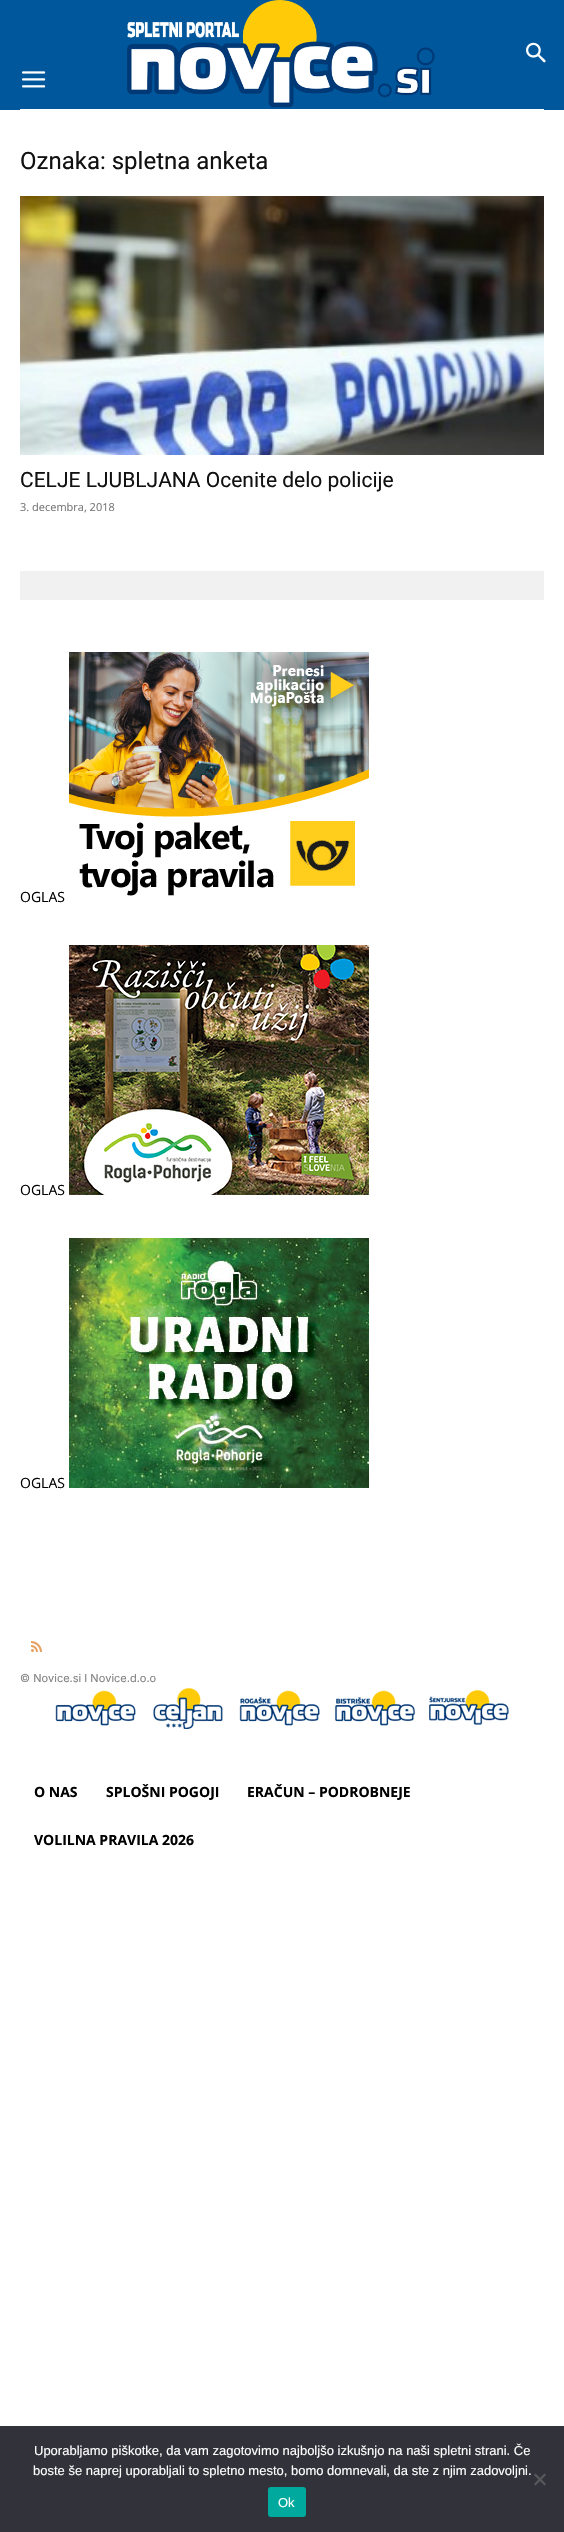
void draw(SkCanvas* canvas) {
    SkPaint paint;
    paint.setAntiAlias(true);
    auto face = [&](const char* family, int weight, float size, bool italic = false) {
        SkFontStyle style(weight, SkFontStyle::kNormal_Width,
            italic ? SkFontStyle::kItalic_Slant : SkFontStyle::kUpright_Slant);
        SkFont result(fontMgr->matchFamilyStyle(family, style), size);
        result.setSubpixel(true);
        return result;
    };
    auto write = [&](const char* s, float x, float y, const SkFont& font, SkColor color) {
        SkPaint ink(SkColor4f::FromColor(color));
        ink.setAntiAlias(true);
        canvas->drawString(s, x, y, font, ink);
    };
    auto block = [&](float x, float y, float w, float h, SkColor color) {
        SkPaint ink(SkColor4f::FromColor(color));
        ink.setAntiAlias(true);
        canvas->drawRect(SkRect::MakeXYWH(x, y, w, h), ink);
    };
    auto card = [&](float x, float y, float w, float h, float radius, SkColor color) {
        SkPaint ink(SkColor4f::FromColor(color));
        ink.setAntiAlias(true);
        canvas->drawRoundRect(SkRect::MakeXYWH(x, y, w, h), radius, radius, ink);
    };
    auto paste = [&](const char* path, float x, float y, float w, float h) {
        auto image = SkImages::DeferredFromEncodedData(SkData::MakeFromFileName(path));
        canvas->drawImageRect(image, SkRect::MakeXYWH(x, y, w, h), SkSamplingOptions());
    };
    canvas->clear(SK_ColorWHITE);
    block(0, 0, 564, 110, SkColorSetRGB(0, 87, 156));
    paste("pic1.png", 127, 0, 308, 108);
    paste("pic2.png", 526, 42, 20, 21);
    paste("pic3.png", 22, 71, 24, 17);
    block(20, 109, 524, 1, SK_ColorWHITE);
    auto kFont1 = face("Roboto", 400, 24);
    write("Oznaka: spletna anketa", 20, 169, kFont1, SkColorSetRGB(17, 17, 17));
    paste("pic4.png", 20, 196, 524, 259);
    auto kFont2 = face("Roboto", 400, 21);
    write("CELJE LJUBLJANA Ocenite delo policije", 20, 487, kFont2, SkColorSetRGB(17, 17, 17));
    auto kFont3 = face("Open Sans", 400, 11);
    write("3. decembra, 2018", 20, 511, kFont3, SkColorSetRGB(118, 118, 118));
    block(20, 571, 524, 29, SkColorSetRGB(241, 241, 241));
    auto kFont4 = face("Open Sans", 400, 14);
    write("OGLAS", 20, 902, kFont4, SK_ColorBLACK);
    paste("pic5.png", 69, 652, 300, 244);
    write("OGLAS", 20, 1195, kFont4, SK_ColorBLACK);
    paste("pic6.png", 69, 945, 300, 250);
    write("OGLAS", 20, 1488, kFont4, SK_ColorBLACK);
    paste("pic7.png", 69, 1238, 300, 250);
    paste("pic8.png", 31, 1641, 11, 11);
    auto kFont5 = face("Inter", 400, 11);
    write("© Novice.si I Novice.d.o.o", 20, 1682, kFont5, SkColorSetRGB(130, 130, 129));
    paste("pic9.png", 55, 1688, 454, 41);
    auto kFont6 = face("Open Sans", 700, 14);
    write("O NAS", 34, 1797, kFont6, SK_ColorBLACK);
    write("SPLOŠNI POGOJI", 106, 1797, kFont6, SK_ColorBLACK);
    write("ERAČUN – PODROBNEJE", 247, 1797, kFont6, SK_ColorBLACK);
    write("VOLILNA PRAVILA 2026", 34, 1845, kFont6, SK_ColorBLACK);
    block(0, 2426, 564, 106, SkColorSetRGB(50, 50, 58));
    auto kFont7 = face("Liberation Sans", 400, 13);
    write("Uporabljamo piškotke, da vam zagotovimo najboljšo izkušnjo na naši spletni strani. Če", 34, 2455, kFont7, SK_ColorWHITE);
    write("boste še naprej uporabljali to spletno mesto, bomo domnevali, da ste z njim zadovoljni.", 33, 2475, kFont7, SK_ColorWHITE);
    paint.setColor(SkColorSetRGB(89, 89, 93));
    canvas->drawPath(SkPathBuilder().moveTo(544.5f, 2473.5f).lineTo(546, 2475).lineTo(535.5f, 2485.5f).lineTo(534, 2484).close().detach(), paint);
    canvas->drawPath(SkPathBuilder().moveTo(534, 2475).lineTo(535.5f, 2473.5f).lineTo(546, 2484).lineTo(544.5f, 2485.5f).close().detach(), paint);
    card(268, 2487, 38, 30, 3, SkColorSetRGB(0, 169, 157));
    write("Ok", 278, 2507, kFont7, SK_ColorWHITE);
}
